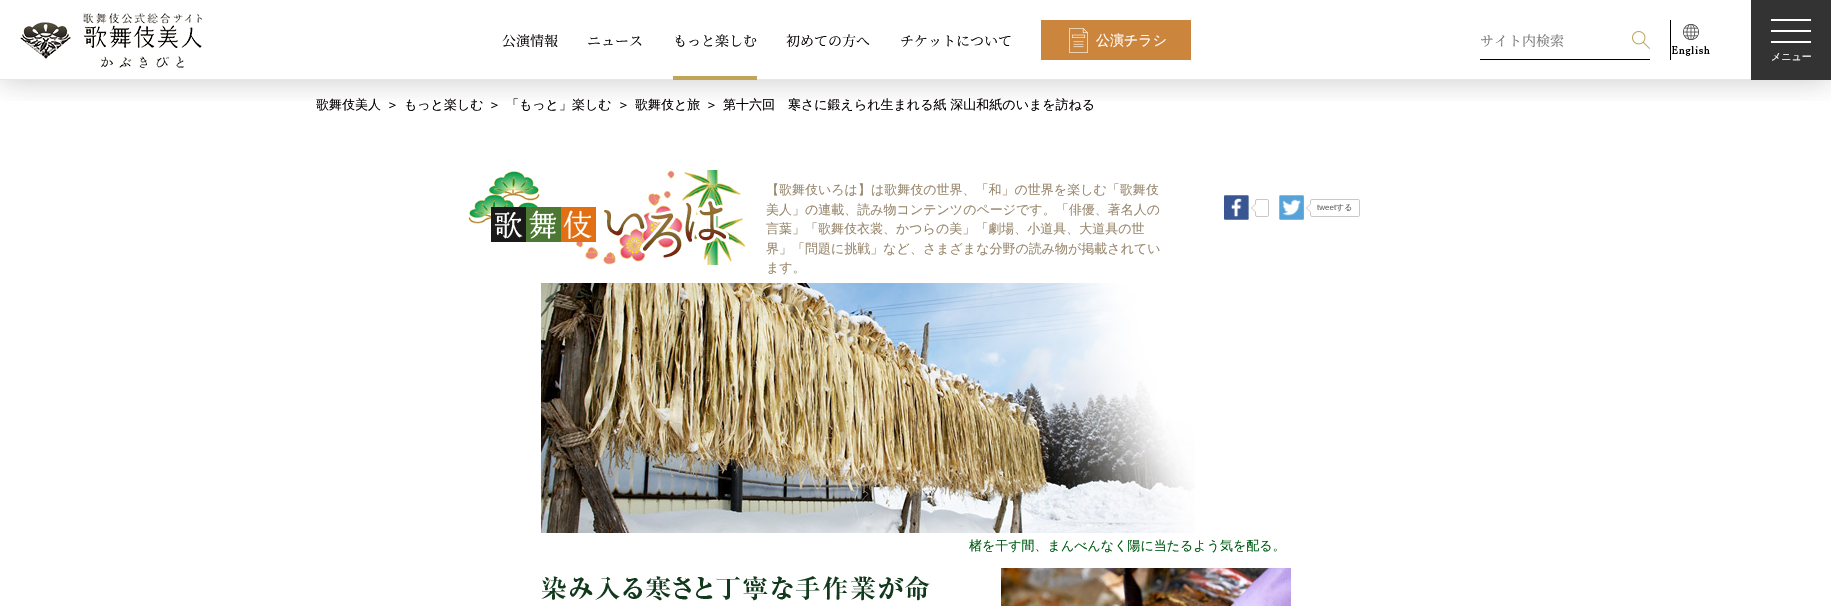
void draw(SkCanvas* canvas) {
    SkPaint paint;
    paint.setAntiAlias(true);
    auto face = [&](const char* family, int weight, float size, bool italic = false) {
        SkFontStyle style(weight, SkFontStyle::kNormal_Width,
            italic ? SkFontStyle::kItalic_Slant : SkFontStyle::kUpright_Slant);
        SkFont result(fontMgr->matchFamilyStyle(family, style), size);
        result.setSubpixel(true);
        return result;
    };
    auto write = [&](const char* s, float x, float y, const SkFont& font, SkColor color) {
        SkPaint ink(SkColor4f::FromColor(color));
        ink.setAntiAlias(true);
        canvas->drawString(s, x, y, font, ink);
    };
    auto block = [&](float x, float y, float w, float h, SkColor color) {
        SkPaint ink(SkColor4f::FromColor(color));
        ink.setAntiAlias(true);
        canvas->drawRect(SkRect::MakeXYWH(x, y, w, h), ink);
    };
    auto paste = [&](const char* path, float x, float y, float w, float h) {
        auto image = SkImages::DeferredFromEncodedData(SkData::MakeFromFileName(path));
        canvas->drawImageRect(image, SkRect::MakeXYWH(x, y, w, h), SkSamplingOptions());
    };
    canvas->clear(SK_ColorWHITE);
    canvas->save();
    canvas->clipRect(SkRect::MakeXYWH(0, 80, 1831, 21));
    paint.setColor(SkColorSetARGB(64, 28, 29, 29));
    paint.setMaskFilter(SkMaskFilter::MakeBlur(kNormal_SkBlurStyle, 15));
    canvas->drawRect(SkRect::MakeXYWH(0, 0, 1831, 80), paint);
    paint.setMaskFilter(nullptr);
    canvas->restore();
    block(0, 79, 1751, 1, SkColorSetRGB(230, 230, 230));
    paste("pic1.png", 20, 13, 182, 55);
    auto kFont1 = face("Noto Serif JP", 200, 14);
    write("公演情報", 502, 46, kFont1, SkColorSetRGB(4, 0, 0));
    write("ニュース", 587, 46, kFont1, SkColorSetRGB(4, 0, 0));
    write("もっと楽しむ", 673, 46, kFont1, SkColorSetRGB(4, 0, 0));
    block(673, 76, 84, 4, SkColorSetRGB(191, 164, 90));
    write("初めての方へ", 786, 46, kFont1, SkColorSetRGB(4, 0, 0));
    write("チケットについて", 900, 46, kFont1, SkColorSetRGB(4, 0, 0));
    block(1041, 20, 150, 40, SkColorSetRGB(204, 133, 61));
    paste("pic2.png", 1069, 28, 19, 25);
    auto kFont2 = face("WenQuanYi Zen Hei", 500, 14);
    write("公演チラシ", 1096, 45, kFont2, SK_ColorWHITE);
    block(1670, 20, 1, 40, SK_ColorBLACK);
    block(1480, 59, 170, 1, SK_ColorBLACK);
    write("サイト内検索", 1480, 46, kFont1, SkColorSetRGB(117, 117, 117));
    paste("pic3.png", 1632, 31, 18, 18);
    paste("pic4.png", 1671, 24, 39, 32);
    block(1751, 0, 80, 80, SkColorSetRGB(51, 51, 51));
    block(1771, 19, 40, 2, SK_ColorWHITE);
    block(1771, 30, 40, 2, SK_ColorWHITE);
    block(1771, 41, 40, 2, SK_ColorWHITE);
    auto kFont3 = face("WenQuanYi Zen Hei", 500, 10);
    write("メニュー", 1771, 60, kFont3, SK_ColorWHITE);
    auto kFont4 = face("WenQuanYi Zen Hei", 500, 13);
    write("歌舞伎美人", 316, 109, kFont4, SkColorSetRGB(4, 0, 0));
    write("＞", 386, 109, kFont4, SkColorSetRGB(4, 0, 0));
    write("もっと楽しむ", 404, 109, kFont4, SkColorSetRGB(4, 0, 0));
    write("＞", 488, 109, kFont4, SkColorSetRGB(4, 0, 0));
    write("「もっと」楽しむ", 506, 109, kFont4, SkColorSetRGB(4, 0, 0));
    write("＞", 617, 109, kFont4, SkColorSetRGB(4, 0, 0));
    write("歌舞伎と旅", 635, 109, kFont4, SkColorSetRGB(4, 0, 0));
    write("＞", 705, 109, kFont4, SkColorSetRGB(4, 0, 0));
    write("第十六回　寒さに鍛えられ生まれる紙 深山和紙のいまを訪ねる", 723, 109, kFont4, SkColorSetRGB(4, 0, 0));
    paste("pic5.png", 468, 170, 278, 95);
    write("【歌舞伎いろは】は歌舞伎の世界、「和」の世界を楽しむ「歌舞伎", 766, 194, kFont4, SkColorSetRGB(153, 136, 110));
    write("美人」の連載、読み物コンテンツのページです。「俳優、著名人の", 766, 214, kFont4, SkColorSetRGB(153, 136, 110));
    write("言葉」「歌舞伎衣裳、かつらの美」「劇場、小道具、大道具の世", 766, 233, kFont4, SkColorSetRGB(153, 136, 110));
    write("界」「問題に挑戦」など、さまざまな分野の読み物が掲載されてい", 766, 253, kFont4, SkColorSetRGB(153, 136, 110));
    write("ます。", 766, 272, kFont4, SkColorSetRGB(153, 136, 110));
    paste("pic6.png", 1224, 195, 25, 25);
    paint.setStyle(SkPaint::kStroke_Style);
    paint.setStrokeWidth(1);
    paint.setColor(SkColorSetRGB(200, 200, 200));
    canvas->drawRoundRect(SkRect::MakeXYWH(1255.5f, 199.5f, 13, 17), 1.5f, 1.5f, paint);
    paint.setStyle(SkPaint::kFill_Style);
    canvas->drawPath(SkPathBuilder().moveTo(1256, 203).lineTo(1256, 213).lineTo(1251, 208).close().detach(), paint);
    paint.setColor(SK_ColorWHITE);
    canvas->drawPath(SkPathBuilder().moveTo(1256, 204).lineTo(1256, 212).lineTo(1252, 208).close().detach(), paint);
    paste("pic7.png", 1279, 195, 25, 25);
    paint.setStyle(SkPaint::kStroke_Style);
    paint.setColor(SkColorSetRGB(200, 200, 200));
    canvas->drawRoundRect(SkRect::MakeXYWH(1310.5f, 199.5f, 49, 17), 1.5f, 1.5f, paint);
    paint.setStyle(SkPaint::kFill_Style);
    canvas->drawPath(SkPathBuilder().moveTo(1311, 203).lineTo(1311, 213).lineTo(1306, 208).close().detach(), paint);
    paint.setColor(SK_ColorWHITE);
    canvas->drawPath(SkPathBuilder().moveTo(1311, 204).lineTo(1311, 212).lineTo(1307, 208).close().detach(), paint);
    auto kFont5 = face("Liberation Sans", 400, 8);
    write("tweet", 1317, 210, kFont5, SkColorSetRGB(100, 100, 100));
    auto kFont6 = face("WenQuanYi Zen Hei", 500, 8);
    write("する", 1336, 210, kFont6, SkColorSetRGB(100, 100, 100));
    paste("pic8.png", 541, 283, 654, 250);
    write("楮を干す間、まんべんなく陽に当たるよう気を配る。", 969, 550, kFont4, SkColorSetRGB(0, 94, 20));
    paste("pic9.png", 541, 575, 389, 26);
    paste("pic10.png", 1001, 568, 290, 38);
}
